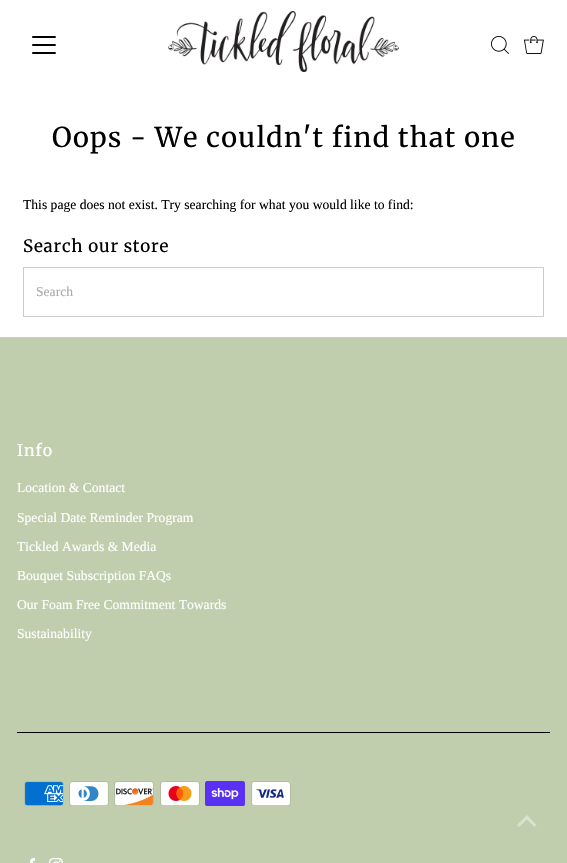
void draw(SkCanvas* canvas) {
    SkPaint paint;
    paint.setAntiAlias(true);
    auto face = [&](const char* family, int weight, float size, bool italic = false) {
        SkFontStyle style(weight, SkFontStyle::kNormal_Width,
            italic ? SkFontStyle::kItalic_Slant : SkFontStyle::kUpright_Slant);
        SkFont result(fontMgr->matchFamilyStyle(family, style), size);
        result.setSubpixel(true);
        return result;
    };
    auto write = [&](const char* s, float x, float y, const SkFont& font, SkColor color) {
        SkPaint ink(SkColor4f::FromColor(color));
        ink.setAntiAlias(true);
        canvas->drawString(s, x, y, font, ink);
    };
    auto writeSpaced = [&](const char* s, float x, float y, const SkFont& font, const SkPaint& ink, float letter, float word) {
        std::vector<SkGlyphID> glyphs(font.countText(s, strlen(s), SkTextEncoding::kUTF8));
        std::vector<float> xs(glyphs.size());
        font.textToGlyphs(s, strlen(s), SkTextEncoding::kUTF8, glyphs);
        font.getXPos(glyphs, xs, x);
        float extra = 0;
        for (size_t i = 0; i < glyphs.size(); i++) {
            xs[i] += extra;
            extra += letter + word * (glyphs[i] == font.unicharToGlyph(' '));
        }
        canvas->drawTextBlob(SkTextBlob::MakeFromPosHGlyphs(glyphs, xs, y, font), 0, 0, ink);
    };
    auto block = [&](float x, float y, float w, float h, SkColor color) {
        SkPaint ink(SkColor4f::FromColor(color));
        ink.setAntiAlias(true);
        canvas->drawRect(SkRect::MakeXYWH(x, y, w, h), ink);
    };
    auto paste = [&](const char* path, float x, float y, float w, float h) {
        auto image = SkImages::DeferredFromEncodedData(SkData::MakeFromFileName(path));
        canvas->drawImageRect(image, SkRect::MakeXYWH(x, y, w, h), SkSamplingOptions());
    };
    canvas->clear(SK_ColorWHITE);
    paste("pic1.png", 32, 36, 24, 18);
    paste("pic2.png", 168, 11, 231, 61);
    paste("pic3.png", 491, 36, 18, 18);
    paste("pic4.png", 524, 36, 20, 18);
    auto kFont1 = face("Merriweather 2", 400, 27.25f);
    paint.setColor(SK_ColorBLACK);
    writeSpaced("Oops - We couldn't find that one", 52, 147, kFont1, paint, 1.35f, 0);
    auto kFont2 = face("Liberation Serif", 400, 13.6f);
    write("This page does not exist. Try searching for what you would like to find:", 23, 209, kFont2, SK_ColorBLACK);
    auto kFont3 = face("Merriweather", 400, 17);
    writeSpaced("Search our store", 23, 252, kFont3, paint, 0.8f, 0);
    paint.setStyle(SkPaint::kStroke_Style);
    paint.setStrokeWidth(1);
    paint.setColor(SkColorSetRGB(204, 204, 204));
    canvas->drawRect(SkRect::MakeXYWH(23.5f, 267.5f, 520, 49), paint);
    write("Search", 36, 296, kFont2, SkColorSetRGB(170, 170, 170));
    block(0, 338, 567, 525, SkColorSetRGB(193, 206, 174));
    block(0, 337, 567, 1, SkColorSetRGB(204, 204, 204));
    auto kFont4 = face("Merriweather", 400, 16);
    paint.setStyle(SkPaint::kFill_Style);
    paint.setColor(SK_ColorWHITE);
    writeSpaced("Info", 17, 456, kFont4, paint, 1, 0);
    write("Location & Contact", 17, 492, kFont2, SK_ColorWHITE);
    write("Special Date Reminder Program", 17, 522, kFont2, SK_ColorWHITE);
    write("Tickled Awards & Media", 17, 551, kFont2, SK_ColorWHITE);
    write("Bouquet Subscription FAQs", 17, 580, kFont2, SK_ColorWHITE);
    write("Our Foam Free Commitment Towards", 17, 609, kFont2, SK_ColorWHITE);
    write("Sustainability", 17, 638, kFont2, SK_ColorWHITE);
    block(17, 732, 533, 1, SK_ColorBLACK);
    paste("pic5.png", 24, 781, 40, 25);
    paste("pic6.png", 69, 781, 40, 25);
    paste("pic7.png", 114, 781, 40, 25);
    paste("pic8.png", 160, 781, 40, 25);
    paste("pic9.png", 205, 781, 40, 25);
    paste("pic10.png", 251, 781, 40, 25);
    paste("pic11.png", 30, 858, 5, 5);
    paste("pic12.png", 49, 858, 14, 5);
    paint.setColor(SkColorSetRGB(218, 226, 206));
    canvas->drawPath(SkPathBuilder().moveTo(527, 815).lineTo(517, 825).lineTo(519, 827).lineTo(527, 819.5f).lineTo(534.5f, 827).lineTo(536.5f, 825).close().detach(), paint);
}
